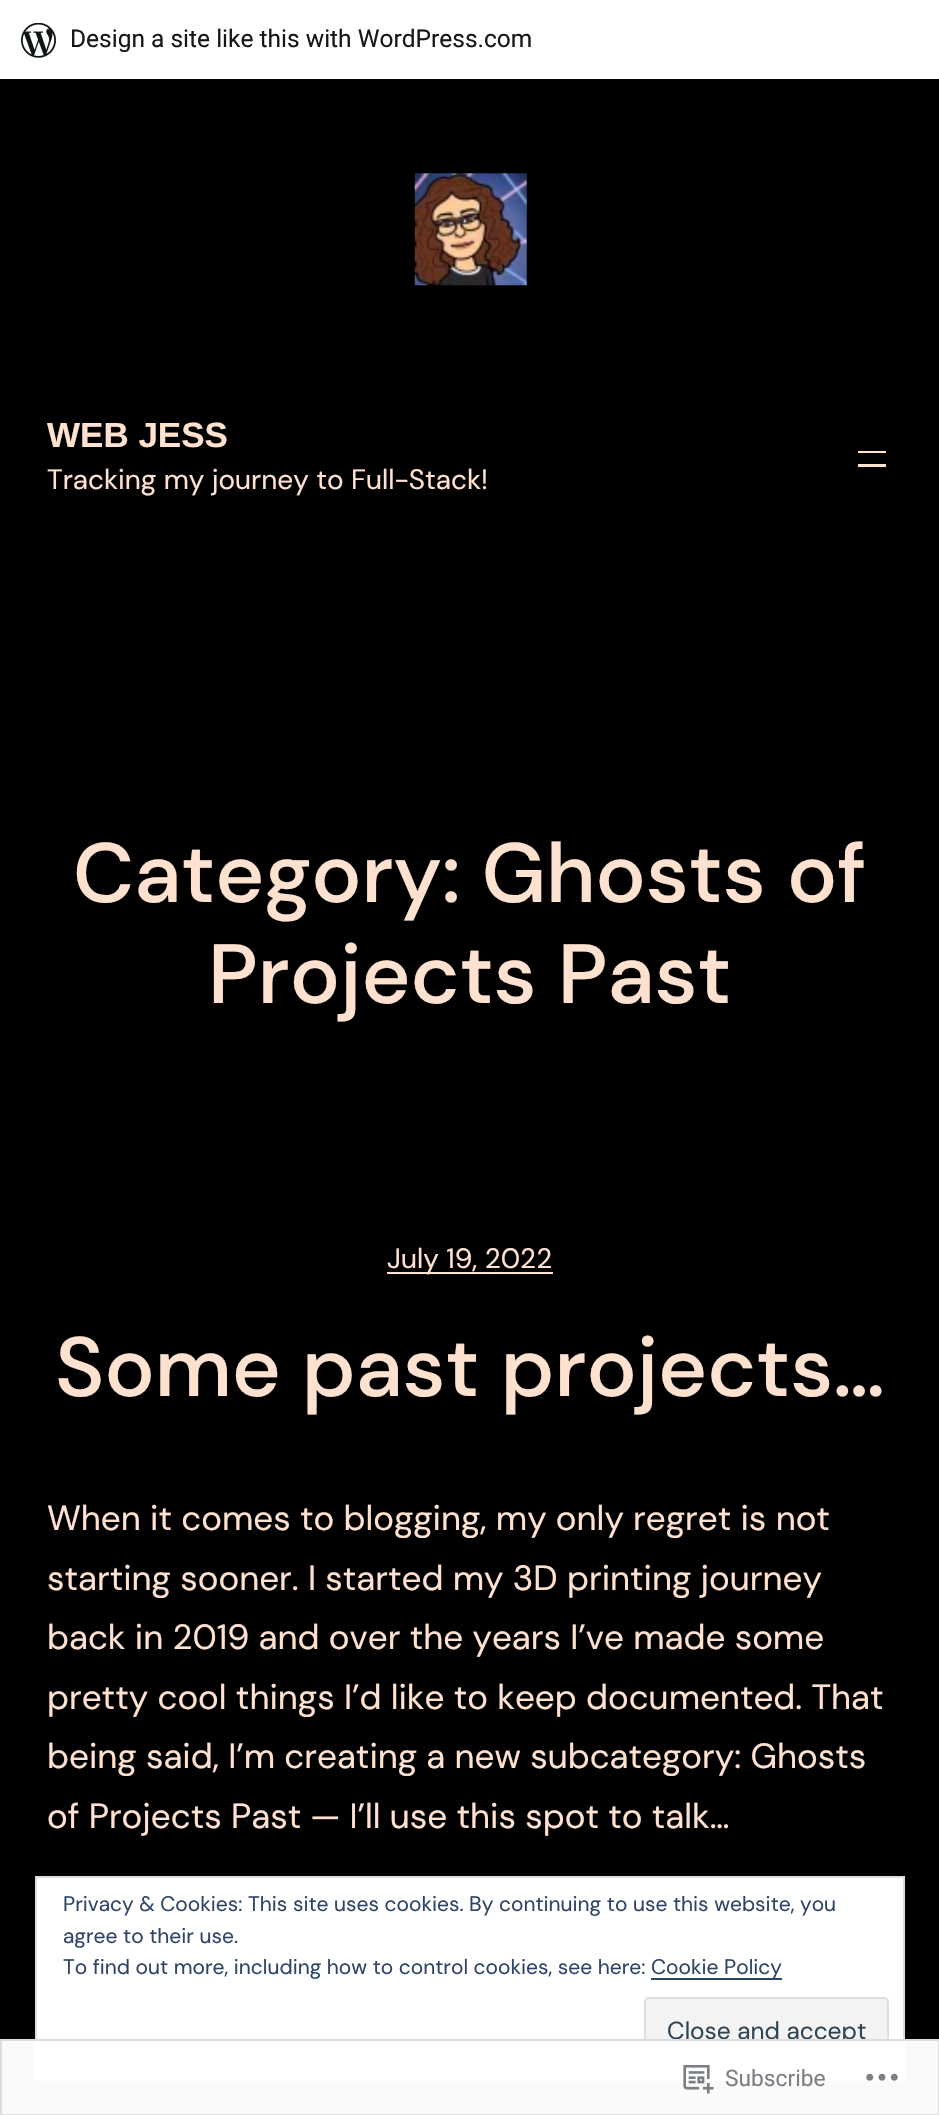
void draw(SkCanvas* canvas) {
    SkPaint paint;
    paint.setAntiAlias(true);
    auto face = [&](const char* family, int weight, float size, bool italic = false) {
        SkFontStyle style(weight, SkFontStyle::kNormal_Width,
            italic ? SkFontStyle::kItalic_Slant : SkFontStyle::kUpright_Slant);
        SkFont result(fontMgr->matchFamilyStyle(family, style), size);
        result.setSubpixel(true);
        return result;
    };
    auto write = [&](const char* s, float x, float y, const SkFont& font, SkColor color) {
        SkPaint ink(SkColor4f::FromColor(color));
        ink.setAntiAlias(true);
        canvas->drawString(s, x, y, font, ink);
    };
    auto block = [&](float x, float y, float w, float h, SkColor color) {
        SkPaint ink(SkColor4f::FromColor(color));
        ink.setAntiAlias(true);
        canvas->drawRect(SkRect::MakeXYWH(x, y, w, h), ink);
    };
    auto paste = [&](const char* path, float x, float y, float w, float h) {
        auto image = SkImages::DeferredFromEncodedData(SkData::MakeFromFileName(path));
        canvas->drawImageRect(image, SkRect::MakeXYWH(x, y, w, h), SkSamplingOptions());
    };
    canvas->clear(SK_ColorBLACK);
    block(0, 0, 939, 79, SK_ColorWHITE);
    paste("pic1.png", 21, 23, 35, 35);
    auto kFont1 = face("Roboto", 400, 24.5f);
    write("Design a site like this with WordPress.com", 70, 47, kFont1, SkColorSetRGB(23, 23, 23));
    paste("pic2.png", 414, 173, 113, 113);
    auto kFont2 = face("Liberation Sans", 700, 35);
    write("WEB JESS", 47, 447, kFont2, SkColorSetRGB(255, 225, 208));
    auto kFont3 = face("DM Sans", 400, 28);
    write("Tracking my journey to Full-Stack!", 47, 489, kFont3, SkColorSetRGB(255, 225, 208));
    block(858, 451, 28, 2, SkColorSetRGB(255, 225, 208));
    block(858, 464, 28, 3, SkColorSetRGB(255, 225, 208));
    auto kFont4 = face("DM Sans", 500, 84);
    write("Category: Ghosts of", 73, 902, kFont4, SkColorSetRGB(255, 225, 208));
    write("Projects Past", 208, 1003, kFont4, SkColorSetRGB(255, 225, 208));
    block(387, 1272, 166, 2, SkColorSetRGB(255, 225, 208));
    write("July 19, 2022", 387, 1268, kFont3, SkColorSetRGB(255, 225, 208));
    write("Some past projects…", 55, 1396, kFont4, SkColorSetRGB(255, 225, 208));
    auto kFont5 = face("DM Sans", 400, 35);
    write("When it comes to blogging, my only regret is not", 47, 1530, kFont5, SkColorSetRGB(255, 225, 208));
    write("starting sooner. I started my 3D printing journey", 47, 1590, kFont5, SkColorSetRGB(255, 225, 208));
    write("back in 2019 and over the years I’ve made some", 47, 1649, kFont5, SkColorSetRGB(255, 225, 208));
    write("pretty cool things I’d like to keep documented. That", 47, 1709, kFont5, SkColorSetRGB(255, 225, 208));
    write("being said, I’m creating a new subcategory: Ghosts", 47, 1768, kFont5, SkColorSetRGB(255, 225, 208));
    write("of Projects Past — I’ll use this spot to talk…", 47, 1828, kFont5, SkColorSetRGB(255, 225, 208));
    paint.setColor(SK_ColorWHITE);
    canvas->drawRect(SkRect::MakeXYWH(36, 1877, 868, 203), paint);
    paint.setStyle(SkPaint::kStroke_Style);
    paint.setStrokeWidth(2);
    paint.setColor(SkColorSetRGB(222, 222, 222));
    canvas->drawRect(SkRect::MakeXYWH(36, 1877, 868, 203), paint);
    auto kFont6 = face("DM Sans", 400, 21);
    write("Privacy & Cookies: This site uses cookies. By continuing to use this website, you", 63, 1911, kFont6, SkColorSetRGB(46, 68, 103));
    write("agree to their use.", 63, 1943, kFont6, SkColorSetRGB(46, 68, 103));
    write("To find out more, including how to control cookies, see here:", 63, 1974, kFont6, SkColorSetRGB(46, 68, 103));
    block(651, 1978, 131, 2, SkColorSetRGB(46, 68, 103));
    write("Cookie Policy", 651, 1974, kFont6, SkColorSetRGB(46, 68, 103));
    paint.setStyle(SkPaint::kFill_Style);
    paint.setColor(SkColorSetRGB(243, 243, 243));
    canvas->drawRoundRect(SkRect::MakeXYWH(645, 1998, 243, 66), 4, 4, paint);
    paint.setStyle(SkPaint::kStroke_Style);
    paint.setColor(SkColorSetRGB(222, 222, 222));
    canvas->drawRoundRect(SkRect::MakeXYWH(645, 1998, 243, 66), 4, 4, paint);
    auto kFont7 = face("DM Sans", 400, 24.5f);
    write("Close and accept", 667, 2039, kFont7, SkColorSetRGB(46, 68, 83));
    block(0, 2039, 939, 76, SkColorSetARGB(250, 255, 255, 255));
    paint.setColor(SkColorSetARGB(250, 220, 220, 222));
    canvas->drawRect(SkRect::MakeXYWH(1, 2040, 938, 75), paint);
    paste("pic3.png", 683, 2065, 31, 29);
    auto kFont8 = face("Roboto", 400, 22.75f);
    write("Subscribe", 725, 2086, kFont8, SkColorSetRGB(123, 127, 132));
    paste("pic4.png", 866, 2073, 32, 8);
}
